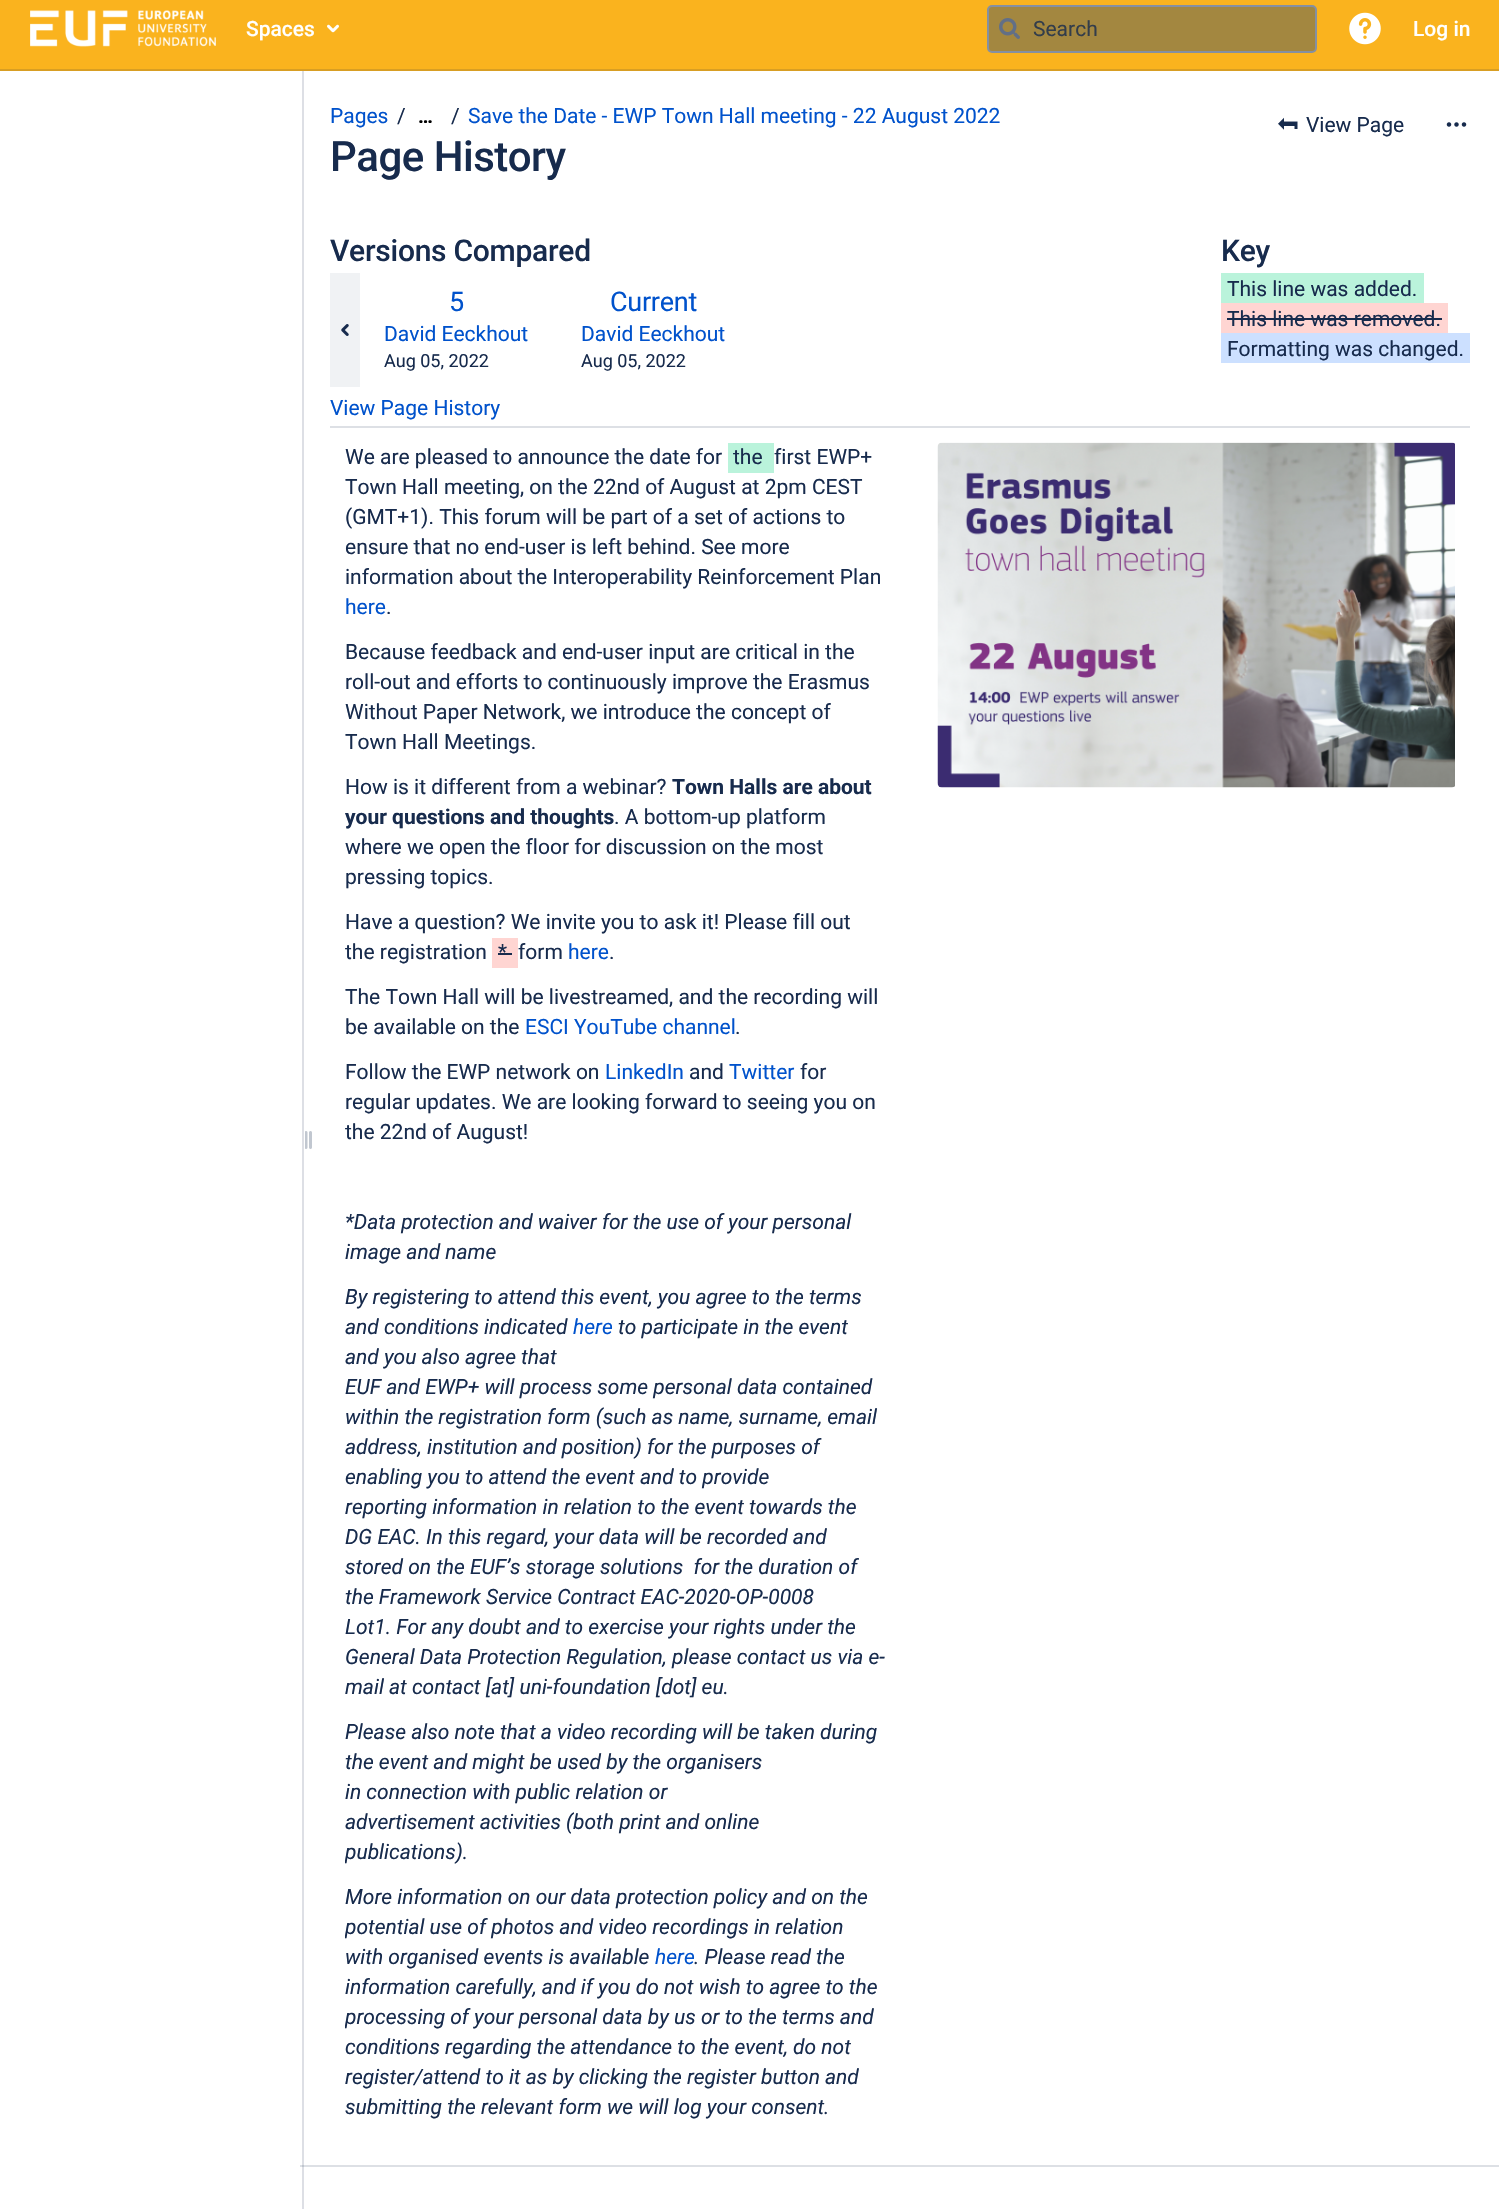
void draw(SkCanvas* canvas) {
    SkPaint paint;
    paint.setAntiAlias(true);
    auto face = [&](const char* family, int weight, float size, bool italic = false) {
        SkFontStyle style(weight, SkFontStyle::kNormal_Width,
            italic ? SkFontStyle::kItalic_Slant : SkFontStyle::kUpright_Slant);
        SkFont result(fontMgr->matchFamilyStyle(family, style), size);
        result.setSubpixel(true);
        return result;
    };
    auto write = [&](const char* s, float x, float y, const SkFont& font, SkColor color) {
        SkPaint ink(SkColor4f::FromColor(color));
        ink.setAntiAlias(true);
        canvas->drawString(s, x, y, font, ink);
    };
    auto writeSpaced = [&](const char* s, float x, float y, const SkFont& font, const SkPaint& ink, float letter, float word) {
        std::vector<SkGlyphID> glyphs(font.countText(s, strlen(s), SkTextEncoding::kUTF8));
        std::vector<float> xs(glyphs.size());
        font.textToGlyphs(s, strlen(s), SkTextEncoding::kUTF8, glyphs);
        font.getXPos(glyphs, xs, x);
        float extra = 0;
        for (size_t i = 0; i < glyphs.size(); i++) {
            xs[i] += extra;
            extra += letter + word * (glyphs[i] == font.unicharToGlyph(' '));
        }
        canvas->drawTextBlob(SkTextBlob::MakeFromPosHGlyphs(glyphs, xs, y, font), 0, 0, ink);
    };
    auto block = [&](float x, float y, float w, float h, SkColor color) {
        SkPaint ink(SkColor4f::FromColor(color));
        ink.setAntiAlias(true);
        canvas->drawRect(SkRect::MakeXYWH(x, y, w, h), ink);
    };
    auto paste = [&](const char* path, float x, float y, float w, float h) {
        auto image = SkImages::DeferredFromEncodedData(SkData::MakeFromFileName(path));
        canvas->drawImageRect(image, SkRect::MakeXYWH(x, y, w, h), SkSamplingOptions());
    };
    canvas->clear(SK_ColorWHITE);
    block(302, 71, 2, 2138, SkColorSetRGB(221, 223, 229));
    block(0, 0, 1499, 69, SkColorSetRGB(250, 179, 30));
    block(0, 69, 1499, 2, SkColorSetRGB(216, 158, 35));
    paste("pic1.png", 30, 10, 186, 37);
    auto kFont1 = face("Roboto", 500, 21);
    write("Spaces", 246, 36, kFont1, SK_ColorWHITE);
    paste("pic2.png", 327, 24, 12, 9);
    paint.setColor(SkColorSetRGB(163, 135, 64));
    canvas->drawRoundRect(SkRect::MakeXYWH(988, 6, 328, 46), 4, 4, paint);
    paint.setStyle(SkPaint::kStroke_Style);
    paint.setStrokeWidth(2);
    paint.setColor(SkColorSetRGB(133, 144, 162));
    canvas->drawRoundRect(SkRect::MakeXYWH(988, 6, 328, 46), 4, 4, paint);
    paste("pic3.png", 999, 18, 21, 21);
    auto kFont2 = face("Roboto", 400, 21);
    write("Search", 1033, 36, kFont2, SkColorSetRGB(51, 61, 74));
    paste("pic4.png", 1349, 12, 32, 33);
    write("Log in", 1413, 36, kFont1, SK_ColorWHITE);
    paste("pic5.png", 305, 1131, 7, 18);
    block(300, 2165, 1199, 2, SkColorSetRGB(221, 224, 229));
    block(302, 2165, 2, 2, SkColorSetRGB(191, 197, 206));
    write("Pages", 330, 123, kFont2, SkColorSetRGB(0, 82, 204));
    write("/", 397, 123, kFont2, SkColorSetRGB(23, 43, 77));
    auto kFont3 = face("Roboto", 700, 20);
    write("…", 418, 123, kFont3, SK_ColorBLACK);
    write("/", 451, 123, kFont2, SkColorSetRGB(23, 43, 77));
    write("Save the Date - EWP Town Hall meeting - 22 August 2022", 468, 123, kFont2, SkColorSetRGB(0, 82, 204));
    auto kFont4 = face("Roboto", 500, 42);
    paint.setStyle(SkPaint::kFill_Style);
    paint.setColor(SkColorSetRGB(23, 43, 77));
    writeSpaced("Page History", 330, 171, kFont4, paint, -0.5f, 0);
    paste("pic6.png", 1278, 117, 20, 13);
    write("View Page", 1306, 132, kFont2, SkColorSetRGB(23, 43, 77));
    paste("pic7.png", 1446, 122, 21, 5);
    block(330, 426, 1140, 2, SkColorSetRGB(221, 224, 229));
    auto kFont5 = face("Roboto", 500, 30);
    writeSpaced("Versions Compared", 330, 261, kFont5, paint, -0.25f, 0);
    writeSpaced("Key", 1221, 261, kFont5, paint, -0.25f, 0);
    block(1221, 273, 203, 30, SkColorSetRGB(186, 243, 219));
    write("This line was added.", 1227, 296, kFont2, SkColorSetRGB(23, 43, 77));
    block(1221, 303, 227, 30, SkColorSetRGB(255, 213, 210));
    write("This line was removed.", 1227, 326, kFont2, SkColorSetRGB(23, 43, 77));
    block(1227, 318, 215, 2, SkColorSetRGB(23, 43, 77));
    block(1221, 333, 249, 30, SkColorSetRGB(204, 224, 255));
    write("Formatting was changed.", 1227, 356, kFont2, SkColorSetRGB(23, 43, 77));
    auto kFont6 = face("Roboto", 400, 27);
    paint.setColor(SkColorSetRGB(0, 82, 204));
    writeSpaced("5", 449, 311, kFont6, paint, -0.25f, 0);
    write("David Eeckhout", 384, 341, kFont2, SkColorSetRGB(0, 82, 204));
    auto kFont7 = face("Roboto", 400, 18);
    write("Aug 05, 2022", 384, 367, kFont7, SkColorSetRGB(23, 43, 77));
    writeSpaced("Current", 610, 311, kFont6, paint, -0.25f, 0);
    write("David Eeckhout", 581, 341, kFont2, SkColorSetRGB(0, 82, 204));
    write("Aug 05, 2022", 581, 367, kFont7, SkColorSetRGB(23, 43, 77));
    block(330, 273, 30, 114, SkColorSetRGB(240, 242, 244));
    paste("pic8.png", 341, 324, 8, 12);
    write("View Page History", 330, 415, kFont2, SkColorSetRGB(0, 82, 204));
    write("We are pleased to announce the date for", 345, 464, kFont2, SkColorSetRGB(23, 43, 77));
    block(728, 443, 46, 30, SkColorSetRGB(186, 243, 219));
    write("the", 733, 464, kFont2, SkColorSetRGB(23, 43, 77));
    write("first EWP+", 774, 464, kFont2, SkColorSetRGB(23, 43, 77));
    write("Town Hall meeting, on the 22nd of August at 2pm CEST", 345, 494, kFont2, SkColorSetRGB(23, 43, 77));
    write("(GMT+1). This forum will be part of a set of actions to", 345, 524, kFont2, SkColorSetRGB(23, 43, 77));
    write("ensure that no end-user is left behind. See more", 345, 554, kFont2, SkColorSetRGB(23, 43, 77));
    write("information about the Interoperability Reinforcement Plan", 345, 584, kFont2, SkColorSetRGB(23, 43, 77));
    write("here", 345, 614, kFont2, SkColorSetRGB(0, 82, 204));
    write(".", 386, 614, kFont2, SkColorSetRGB(23, 43, 77));
    write("Because feedback and end-user input are critical in the", 345, 659, kFont2, SkColorSetRGB(23, 43, 77));
    write("roll-out and efforts to continuously improve the Erasmus", 345, 689, kFont2, SkColorSetRGB(23, 43, 77));
    write("Without Paper Network, we introduce the concept of", 345, 719, kFont2, SkColorSetRGB(23, 43, 77));
    write("Town Hall Meetings.", 345, 749, kFont2, SkColorSetRGB(23, 43, 77));
    write("How is it different from a webinar?", 345, 794, kFont2, SkColorSetRGB(23, 43, 77));
    auto kFont8 = face("Roboto", 700, 21);
    write("Town Halls are about", 672, 794, kFont8, SkColorSetRGB(23, 43, 77));
    write("your questions and thoughts", 345, 824, kFont8, SkColorSetRGB(23, 43, 77));
    write(". A bottom-up platform", 614, 824, kFont2, SkColorSetRGB(23, 43, 77));
    write("where we open the floor for discussion on the most", 345, 854, kFont2, SkColorSetRGB(23, 43, 77));
    write("pressing topics.", 345, 884, kFont2, SkColorSetRGB(23, 43, 77));
    write("Have a question? We invite you to ask it! Please fill out", 345, 929, kFont2, SkColorSetRGB(23, 43, 77));
    write("the registration", 345, 959, kFont2, SkColorSetRGB(23, 43, 77));
    block(492, 938, 26, 30, SkColorSetRGB(255, 213, 210));
    write("*", 498, 959, kFont2, SkColorSetRGB(23, 43, 77));
    block(498, 953, 14, 2, SkColorSetRGB(23, 43, 77));
    write("form", 518, 959, kFont2, SkColorSetRGB(23, 43, 77));
    write("here", 568, 959, kFont2, SkColorSetRGB(0, 82, 204));
    write(".", 609, 959, kFont2, SkColorSetRGB(23, 43, 77));
    write("The Town Hall will be livestreamed, and the recording will", 345, 1004, kFont2, SkColorSetRGB(23, 43, 77));
    write("be available on the", 345, 1034, kFont2, SkColorSetRGB(23, 43, 77));
    write("ESCI YouTube channel", 525, 1034, kFont2, SkColorSetRGB(0, 82, 204));
    write(".", 735, 1034, kFont2, SkColorSetRGB(23, 43, 77));
    write("Follow the EWP network on", 345, 1079, kFont2, SkColorSetRGB(23, 43, 77));
    write("LinkedIn", 605, 1079, kFont2, SkColorSetRGB(0, 82, 204));
    write("and", 689, 1079, kFont2, SkColorSetRGB(23, 43, 77));
    write("Twitter", 729, 1079, kFont2, SkColorSetRGB(0, 82, 204));
    write("for", 800, 1079, kFont2, SkColorSetRGB(23, 43, 77));
    write("regular updates. We are looking forward to seeing you on", 345, 1109, kFont2, SkColorSetRGB(23, 43, 77));
    write("the 22nd of August!", 345, 1139, kFont2, SkColorSetRGB(23, 43, 77));
    auto kFont9 = face("Roboto", 400, 21, true);
    write("*Data protection and waiver for the use of your personal", 345, 1229, kFont9, SkColorSetRGB(23, 43, 77));
    write("image and name", 345, 1259, kFont9, SkColorSetRGB(23, 43, 77));
    write("By registering to attend this event, you agree to the terms", 345, 1304, kFont9, SkColorSetRGB(23, 43, 77));
    write("and conditions indicated", 345, 1334, kFont9, SkColorSetRGB(23, 43, 77));
    write("here", 573, 1334, kFont9, SkColorSetRGB(0, 82, 204));
    write("to participate in the event", 618, 1334, kFont9, SkColorSetRGB(23, 43, 77));
    write("and you also agree that", 345, 1364, kFont9, SkColorSetRGB(23, 43, 77));
    write("EUF and EWP+ will process some personal data contained", 345, 1394, kFont9, SkColorSetRGB(23, 43, 77));
    write("within the registration form (such as name, surname, email", 345, 1424, kFont9, SkColorSetRGB(23, 43, 77));
    write("address, institution and position) for the purposes of", 345, 1454, kFont9, SkColorSetRGB(23, 43, 77));
    write("enabling you to attend the event and to provide", 345, 1484, kFont9, SkColorSetRGB(23, 43, 77));
    write("reporting information in relation to the event towards the", 345, 1514, kFont9, SkColorSetRGB(23, 43, 77));
    write("DG EAC. In this regard, your data will be recorded and", 345, 1544, kFont9, SkColorSetRGB(23, 43, 77));
    write("stored on the EUF’s storage solutions  for the duration of", 345, 1574, kFont9, SkColorSetRGB(23, 43, 77));
    write("the Framework Service Contract EAC-2020-OP-0008", 345, 1604, kFont9, SkColorSetRGB(23, 43, 77));
    write("Lot1. For any doubt and to exercise your rights under the", 345, 1634, kFont9, SkColorSetRGB(23, 43, 77));
    write("General Data Protection Regulation, please contact us via e-", 345, 1664, kFont9, SkColorSetRGB(23, 43, 77));
    write("mail at contact [at] uni-foundation [dot] eu.", 345, 1694, kFont9, SkColorSetRGB(23, 43, 77));
    write("Please also note that a video recording will be taken during", 345, 1739, kFont9, SkColorSetRGB(23, 43, 77));
    write("the event and might be used by the organisers", 345, 1769, kFont9, SkColorSetRGB(23, 43, 77));
    write("in connection with public relation or", 345, 1799, kFont9, SkColorSetRGB(23, 43, 77));
    write("advertisement activities (both print and online", 345, 1829, kFont9, SkColorSetRGB(23, 43, 77));
    canvas->save();
    canvas->clipRect(SkRect::MakeXYWH(345, 443, 540, 1680));
    write("publications).", 345, 1859, kFont9, SkColorSetRGB(23, 43, 77));
    canvas->restore();
    write("More information on our data protection policy and on the", 345, 1904, kFont9, SkColorSetRGB(23, 43, 77));
    canvas->save();
    canvas->clipRect(SkRect::MakeXYWH(345, 443, 540, 1680));
    write("potential use of photos and video recordings in relation", 345, 1934, kFont9, SkColorSetRGB(23, 43, 77));
    canvas->restore();
    write("with organised events is available", 345, 1964, kFont9, SkColorSetRGB(23, 43, 77));
    write("here", 655, 1964, kFont9, SkColorSetRGB(0, 82, 204));
    write(". Please read the", 694, 1964, kFont9, SkColorSetRGB(23, 43, 77));
    write("information carefully, and if you do not wish to agree to the", 345, 1994, kFont9, SkColorSetRGB(23, 43, 77));
    canvas->save();
    canvas->clipRect(SkRect::MakeXYWH(345, 443, 540, 1680));
    write("processing of your personal data by us or to the terms and", 345, 2024, kFont9, SkColorSetRGB(23, 43, 77));
    canvas->restore();
    write("conditions regarding the attendance to the event, do not", 345, 2054, kFont9, SkColorSetRGB(23, 43, 77));
    write("register/attend to it as by clicking the register button and", 345, 2084, kFont9, SkColorSetRGB(23, 43, 77));
    write("submitting the relevant form we will log your consent.", 345, 2114, kFont9, SkColorSetRGB(23, 43, 77));
    paste("pic9.png", 937, 442, 518, 346);
}
